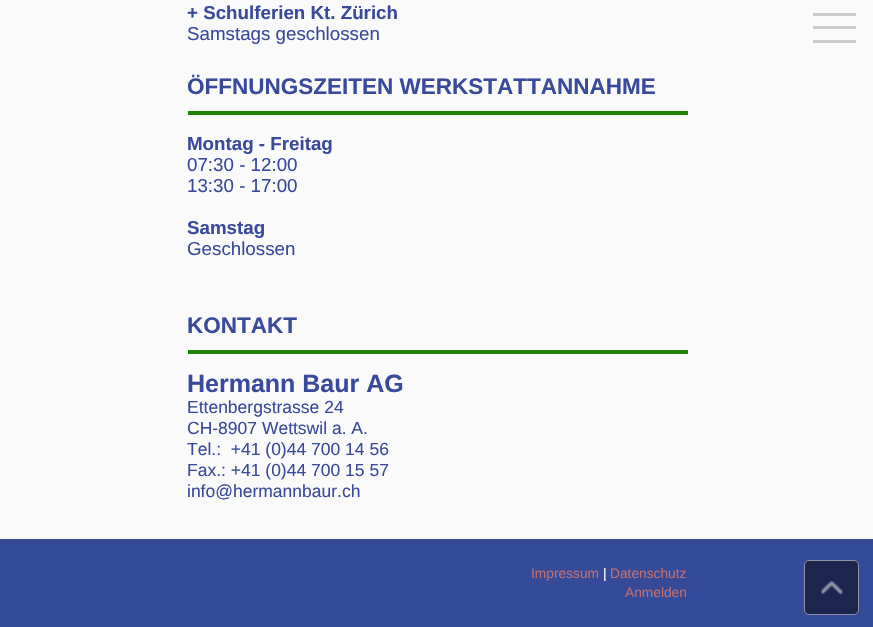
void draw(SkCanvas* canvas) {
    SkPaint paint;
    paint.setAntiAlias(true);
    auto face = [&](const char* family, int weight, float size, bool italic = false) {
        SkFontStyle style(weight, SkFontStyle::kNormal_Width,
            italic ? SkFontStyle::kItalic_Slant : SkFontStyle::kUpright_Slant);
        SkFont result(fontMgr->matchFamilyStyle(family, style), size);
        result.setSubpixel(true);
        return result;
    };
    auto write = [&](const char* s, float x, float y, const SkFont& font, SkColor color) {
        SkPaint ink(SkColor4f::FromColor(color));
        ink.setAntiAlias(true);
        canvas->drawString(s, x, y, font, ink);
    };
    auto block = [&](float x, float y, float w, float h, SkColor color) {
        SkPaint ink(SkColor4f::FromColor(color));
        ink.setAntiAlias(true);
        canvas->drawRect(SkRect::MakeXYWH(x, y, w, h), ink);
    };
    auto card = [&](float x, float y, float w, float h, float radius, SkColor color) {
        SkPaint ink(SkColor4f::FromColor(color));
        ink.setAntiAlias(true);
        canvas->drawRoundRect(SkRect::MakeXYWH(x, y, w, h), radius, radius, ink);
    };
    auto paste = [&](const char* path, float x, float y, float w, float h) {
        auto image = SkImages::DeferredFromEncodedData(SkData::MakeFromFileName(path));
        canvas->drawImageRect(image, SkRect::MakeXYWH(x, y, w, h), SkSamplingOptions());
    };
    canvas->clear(SkColorSetRGB(250, 250, 250));
    auto kFont1 = face("Liberation Sans", 700, 18.75f);
    write("+ Schulferien Kt. Zürich", 187, 19, kFont1, SkColorSetRGB(57, 73, 155));
    auto kFont2 = face("Liberation Sans", 400, 18.75f);
    write("Samstags geschlossen", 187, 40, kFont2, SkColorSetRGB(57, 73, 155));
    auto kFont3 = face("Liberation Sans", 700, 22.5f);
    write("ÖFFNUNGSZEITEN WERKSTATTANNAHME", 187, 94, kFont3, SkColorSetRGB(57, 73, 155));
    block(188, 111, 500, 4, SkColorSetRGB(31, 131, 5));
    write("Montag - Freitag", 187, 150, kFont1, SkColorSetRGB(57, 73, 155));
    write("07:30 - 12:00", 187, 171, kFont2, SkColorSetRGB(57, 73, 155));
    write("13:30 - 17:00", 187, 192, kFont2, SkColorSetRGB(57, 73, 155));
    write("Samstag", 187, 234, kFont1, SkColorSetRGB(57, 73, 155));
    write("Geschlossen", 187, 255, kFont2, SkColorSetRGB(57, 73, 155));
    write("KONTAKT", 187, 333, kFont3, SkColorSetRGB(57, 73, 155));
    block(188, 350, 500, 4, SkColorSetRGB(31, 131, 5));
    auto kFont4 = face("Liberation Sans", 700, 25);
    write("Hermann Baur AG", 187, 392, kFont4, SkColorSetRGB(57, 73, 155));
    auto kFont5 = face("Liberation Sans", 400, 17.5f);
    write("Ettenbergstrasse 24", 187, 413, kFont5, SkColorSetRGB(57, 73, 155));
    write("CH-8907 Wettswil a. A.", 187, 434, kFont5, SkColorSetRGB(57, 73, 155));
    write("Tel.:  +41 (0)44 700 14 56", 187, 455, kFont5, SkColorSetRGB(57, 73, 155));
    write("Fax.: +41 (0)44 700 15 57", 187, 476, kFont5, SkColorSetRGB(57, 73, 155));
    write("info@hermannbaur.ch", 187, 497, kFont5, SkColorSetRGB(57, 73, 155));
    block(813, 13, 43, 3, SkColorSetRGB(204, 204, 204));
    block(813, 26, 43, 3, SkColorSetRGB(204, 204, 204));
    block(813, 40, 43, 3, SkColorSetRGB(204, 204, 204));
    block(0, 539, 873, 88, SkColorSetRGB(54, 74, 154));
    auto kFont6 = face("Liberation Sans", 400, 13.75f);
    write("Impressum", 531, 578, kFont6, SkColorSetRGB(191, 111, 111));
    write("|", 603, 578, kFont6, SK_ColorWHITE);
    write("Datenschutz", 610, 578, kFont6, SkColorSetRGB(191, 111, 111));
    write("Anmelden", 625, 597, kFont6, SkColorSetRGB(191, 111, 111));
    card(804, 560, 55, 55, 5, SkColorSetRGB(27, 37, 77));
    paint.setStyle(SkPaint::kStroke_Style);
    paint.setStrokeWidth(1);
    paint.setColor(SkColorSetARGB(128, 255, 255, 255));
    canvas->drawRoundRect(SkRect::MakeXYWH(804.5f, 560.5f, 54, 54), 4.5f, 4.5f, paint);
    paste("pic1.png", 821, 580, 22, 15);
}
